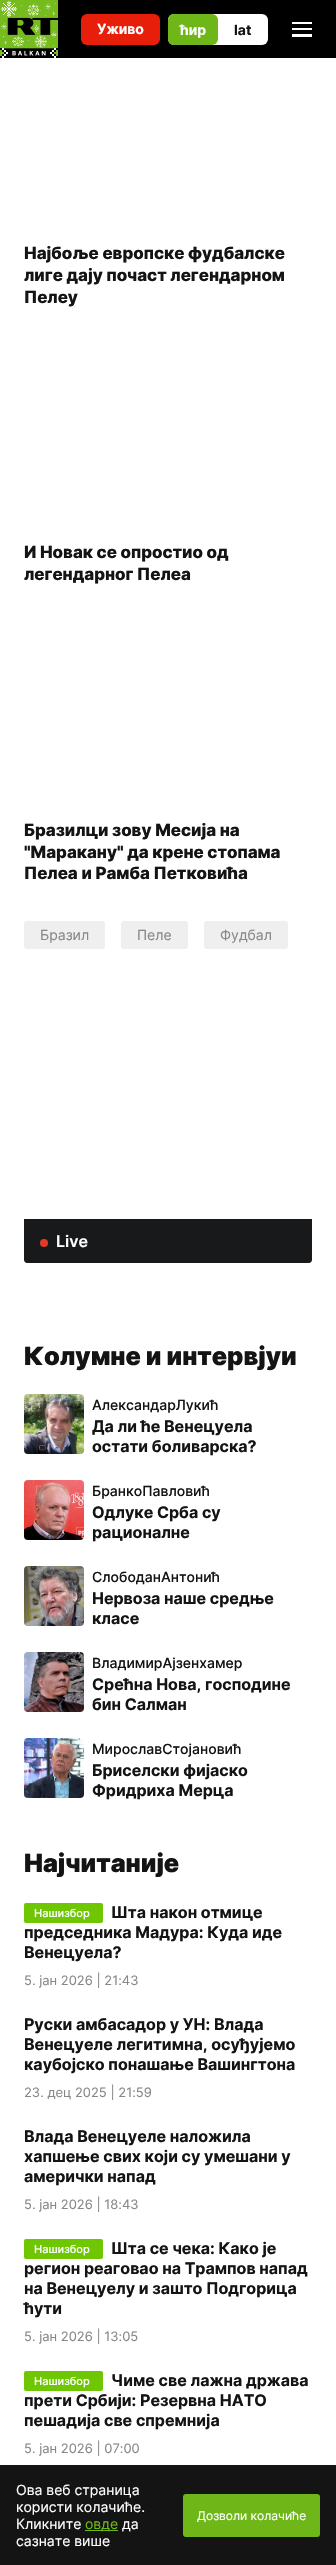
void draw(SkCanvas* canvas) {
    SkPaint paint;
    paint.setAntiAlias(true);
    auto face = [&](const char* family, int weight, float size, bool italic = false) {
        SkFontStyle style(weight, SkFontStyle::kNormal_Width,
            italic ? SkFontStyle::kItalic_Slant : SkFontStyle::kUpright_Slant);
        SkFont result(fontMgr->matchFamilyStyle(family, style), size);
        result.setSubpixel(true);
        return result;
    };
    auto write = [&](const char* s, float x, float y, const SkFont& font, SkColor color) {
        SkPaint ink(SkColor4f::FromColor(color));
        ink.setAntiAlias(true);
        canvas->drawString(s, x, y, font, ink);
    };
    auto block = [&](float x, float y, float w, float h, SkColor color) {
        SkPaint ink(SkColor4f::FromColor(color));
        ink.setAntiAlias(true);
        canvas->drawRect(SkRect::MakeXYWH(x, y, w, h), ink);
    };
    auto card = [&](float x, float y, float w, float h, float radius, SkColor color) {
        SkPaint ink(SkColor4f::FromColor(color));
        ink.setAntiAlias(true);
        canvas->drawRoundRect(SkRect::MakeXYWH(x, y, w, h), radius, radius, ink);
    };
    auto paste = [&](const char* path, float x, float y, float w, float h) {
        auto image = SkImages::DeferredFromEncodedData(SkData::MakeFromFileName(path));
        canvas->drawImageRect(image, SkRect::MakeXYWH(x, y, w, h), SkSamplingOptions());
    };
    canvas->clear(SK_ColorWHITE);
    block(58, 0, 278, 58, SK_ColorBLACK);
    paste("pic1.png", 0, 0, 58, 58);
    card(81, 14, 79, 31, 6, SkColorSetRGB(230, 30, 10));
    auto kFont1 = face("Inter", 700, 14);
    write("Уживо", 97, 34, kFont1, SK_ColorWHITE);
    card(168, 14, 100, 31, 6, SK_ColorWHITE);
    card(168, 14, 50, 31, 6, SkColorSetRGB(111, 183, 25));
    write("ћир", 180, 35, kFont1, SK_ColorWHITE);
    write("lat", 234, 35, kFont1, SkColorSetRGB(20, 20, 20));
    block(292, 22, 20, 2, SK_ColorWHITE);
    block(292, 28, 20, 2, SK_ColorWHITE);
    block(292, 34, 20, 3, SK_ColorWHITE);
    auto kFont2 = face("Inter", 800, 16.9f);
    write("Најбоље европске фудбалске", 24, 259, kFont2, SkColorSetRGB(20, 20, 20));
    write("лиге дају почаст легендарном", 24, 281, kFont2, SkColorSetRGB(20, 20, 20));
    write("Пелеу", 24, 303, kFont2, SkColorSetRGB(20, 20, 20));
    write("И Новак се опростио од", 24, 558, kFont2, SkColorSetRGB(20, 20, 20));
    write("легендарног Пелеа", 24, 580, kFont2, SkColorSetRGB(20, 20, 20));
    write("Бразилци зову Месија на", 24, 836, kFont2, SkColorSetRGB(20, 20, 20));
    write("\"Маракану\" да крене стопама", 24, 858, kFont2, SkColorSetRGB(20, 20, 20));
    write("Пелеа и Рамба Петковића", 24, 879, kFont2, SkColorSetRGB(20, 20, 20));
    card(24, 921, 81, 28, 3, SkColorSetRGB(239, 239, 239));
    auto kFont3 = face("Inter", 400, 14);
    write("Бразил", 40, 940, kFont3, SkColorSetRGB(136, 136, 136));
    card(121, 921, 67, 28, 3, SkColorSetRGB(239, 239, 239));
    write("Пеле", 137, 940, kFont3, SkColorSetRGB(136, 136, 136));
    card(204, 921, 84, 28, 3, SkColorSetRGB(239, 239, 239));
    write("Фудбал", 220, 940, kFont3, SkColorSetRGB(136, 136, 136));
    paint.setColor(SkColorSetRGB(24, 25, 26));
    canvas->drawPath(SkPathBuilder().moveTo(24, 1219).lineTo(312, 1219).lineTo(312, 1260).cubicTo(312, 1261.5f, 310.5f, 1263, 309, 1263).lineTo(27, 1263).cubicTo(25.5f, 1263, 24, 1261.5f, 24, 1260).close().detach(), paint);
    paint.setColor(SkColorSetRGB(225, 58, 40));
    canvas->drawCircle(44, 1243, 4, paint);
    auto kFont4 = face("Inter", 600, 16);
    write("Live", 56, 1247, kFont4, SK_ColorWHITE);
    auto kFont5 = face("Inter", 900, 25.25f);
    write("Колумне и интервјуи", 24, 1365, kFont5, SkColorSetRGB(20, 20, 20));
    paste("pic2.png", 24, 1394, 60, 60);
    auto kFont6 = face("Inter", 500, 14);
    write("Александар Лукић", 92, 1410, kFont6, SkColorSetRGB(20, 20, 20));
    auto kFont7 = face("Inter", 700, 16);
    write("Да ли ће Венецуела", 92, 1432, kFont7, SkColorSetRGB(20, 20, 20));
    write("остати боливарска?", 92, 1452, kFont7, SkColorSetRGB(20, 20, 20));
    paste("pic3.png", 24, 1480, 60, 60);
    write("Бранко Павловић", 92, 1496, kFont6, SkColorSetRGB(20, 20, 20));
    write("Одлуке Срба су", 92, 1518, kFont7, SkColorSetRGB(20, 20, 20));
    write("рационалне", 92, 1538, kFont7, SkColorSetRGB(20, 20, 20));
    paste("pic4.png", 24, 1566, 60, 60);
    write("Слободан Антонић", 92, 1582, kFont6, SkColorSetRGB(20, 20, 20));
    write("Нервоза наше средње", 92, 1604, kFont7, SkColorSetRGB(20, 20, 20));
    write("класе", 92, 1624, kFont7, SkColorSetRGB(20, 20, 20));
    paste("pic5.png", 24, 1652, 60, 60);
    write("Владимир Ајзенхамер", 92, 1668, kFont6, SkColorSetRGB(20, 20, 20));
    write("Срећна Нова, господине", 92, 1690, kFont7, SkColorSetRGB(20, 20, 20));
    write("бин Салман", 92, 1710, kFont7, SkColorSetRGB(20, 20, 20));
    paste("pic6.png", 24, 1738, 60, 60);
    write("Мирослав Стојановић", 92, 1754, kFont6, SkColorSetRGB(20, 20, 20));
    write("Бриселски фијаско", 92, 1776, kFont7, SkColorSetRGB(20, 20, 20));
    write("Фридриха Мерца", 92, 1796, kFont7, SkColorSetRGB(20, 20, 20));
    write("Наjчитаниjе", 24, 1872, kFont5, SkColorSetRGB(20, 20, 20));
    write("Шта након отмице", 111, 1918, kFont7, SkColorSetRGB(20, 20, 20));
    write("председника Мадура: Куда иде", 24, 1938, kFont7, SkColorSetRGB(20, 20, 20));
    write("Венецуела?", 24, 1958, kFont7, SkColorSetRGB(20, 20, 20));
    card(24, 1903, 79, 20, 2, SkColorSetRGB(110, 199, 2));
    auto kFont8 = face("Inter", 500, 11);
    write("Наш избор", 34, 1917, kFont8, SK_ColorWHITE);
    auto kFont9 = face("Inter", 400, 13);
    write("5. јан 2026 | 21:43", 24, 1985, kFont9, SkColorSetRGB(136, 136, 136));
    write("Руски амбасадор у УН: Влада", 24, 2030, kFont7, SkColorSetRGB(20, 20, 20));
    write("Венецуеле легитимна, осуђујемо", 24, 2050, kFont7, SkColorSetRGB(20, 20, 20));
    write("каубојско понашање Вашингтона", 24, 2070, kFont7, SkColorSetRGB(20, 20, 20));
    write("23. дец 2025 | 21:59", 24, 2097, kFont9, SkColorSetRGB(136, 136, 136));
    write("Влада Венецуеле наложила", 24, 2142, kFont7, SkColorSetRGB(20, 20, 20));
    write("хапшење свих који су умешани у", 24, 2162, kFont7, SkColorSetRGB(20, 20, 20));
    write("амерички напад", 24, 2182, kFont7, SkColorSetRGB(20, 20, 20));
    write("5. јан 2026 | 18:43", 24, 2209, kFont9, SkColorSetRGB(136, 136, 136));
    write("Шта се чека: Како је", 111, 2254, kFont7, SkColorSetRGB(20, 20, 20));
    write("регион реаговао на Трампов напад", 24, 2274, kFont7, SkColorSetRGB(20, 20, 20));
    write("на Венецуелу и зашто Подгорица", 24, 2294, kFont7, SkColorSetRGB(20, 20, 20));
    write("ћути", 24, 2314, kFont7, SkColorSetRGB(20, 20, 20));
    card(24, 2239, 79, 20, 2, SkColorSetRGB(110, 199, 2));
    write("Наш избор", 34, 2253, kFont8, SK_ColorWHITE);
    write("5. јан 2026 | 13:05", 24, 2341, kFont9, SkColorSetRGB(136, 136, 136));
    write("Чиме све лажна држава", 111, 2386, kFont7, SkColorSetRGB(20, 20, 20));
    write("прети Србији: Резервна НАТО", 24, 2406, kFont7, SkColorSetRGB(20, 20, 20));
    write("пешадија све спремнија", 24, 2426, kFont7, SkColorSetRGB(20, 20, 20));
    card(24, 2371, 79, 20, 2, SkColorSetRGB(110, 199, 2));
    write("Наш избор", 34, 2385, kFont8, SK_ColorWHITE);
    write("5. јан 2026 | 07:00", 24, 2453, kFont9, SkColorSetRGB(136, 136, 136));
    block(0, 2465, 336, 100, SkColorSetRGB(20, 20, 20));
    write("Ова веб страница", 16, 2495, kFont3, SK_ColorWHITE);
    write("користи колачиће.", 16, 2512, kFont3, SK_ColorWHITE);
    write("Кликните", 16, 2529, kFont3, SK_ColorWHITE);
    block(85, 2530, 33, 1, SkColorSetRGB(111, 183, 25));
    write("овде", 85, 2529, kFont3, SkColorSetRGB(111, 183, 25));
    write("да", 122, 2529, kFont3, SK_ColorWHITE);
    write("сазнате више", 16, 2546, kFont3, SK_ColorWHITE);
    card(183, 2494, 137, 43, 3, SkColorSetRGB(111, 183, 25));
    auto kFont10 = face("Inter", 400, 12);
    write("Дозволи колачиће", 197, 2520, kFont10, SK_ColorWHITE);
}
